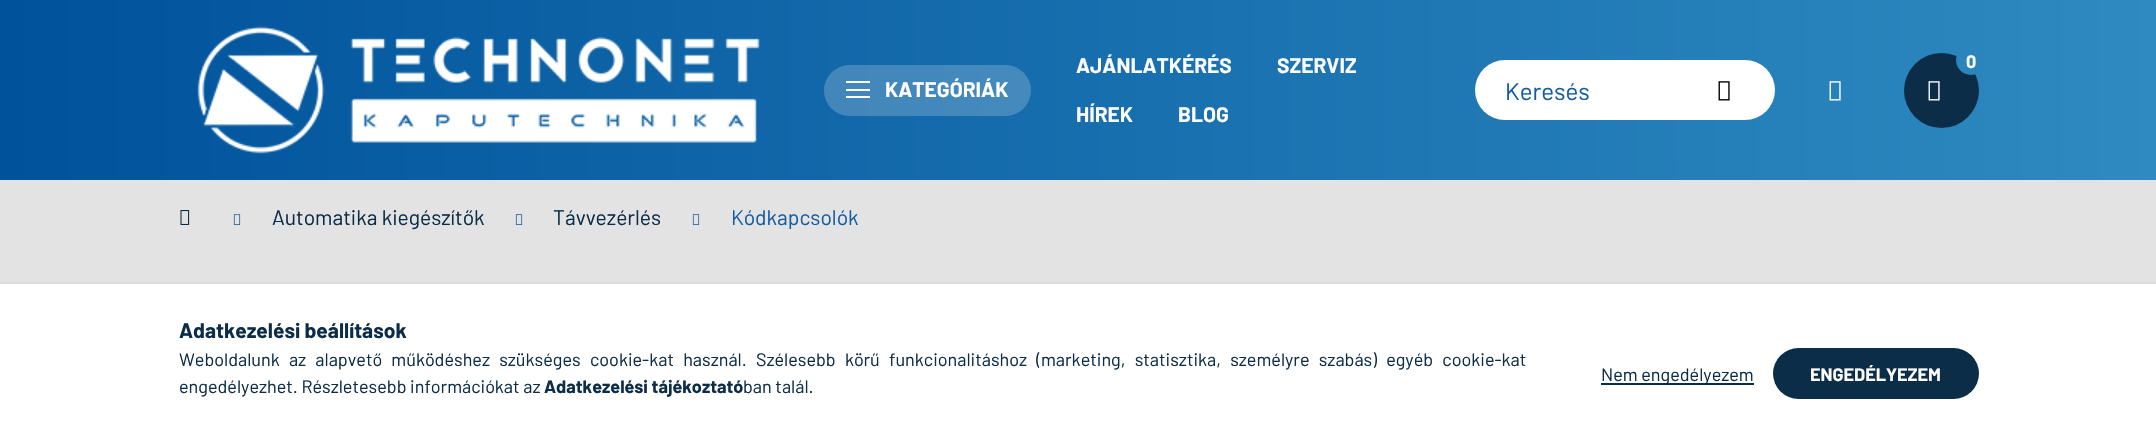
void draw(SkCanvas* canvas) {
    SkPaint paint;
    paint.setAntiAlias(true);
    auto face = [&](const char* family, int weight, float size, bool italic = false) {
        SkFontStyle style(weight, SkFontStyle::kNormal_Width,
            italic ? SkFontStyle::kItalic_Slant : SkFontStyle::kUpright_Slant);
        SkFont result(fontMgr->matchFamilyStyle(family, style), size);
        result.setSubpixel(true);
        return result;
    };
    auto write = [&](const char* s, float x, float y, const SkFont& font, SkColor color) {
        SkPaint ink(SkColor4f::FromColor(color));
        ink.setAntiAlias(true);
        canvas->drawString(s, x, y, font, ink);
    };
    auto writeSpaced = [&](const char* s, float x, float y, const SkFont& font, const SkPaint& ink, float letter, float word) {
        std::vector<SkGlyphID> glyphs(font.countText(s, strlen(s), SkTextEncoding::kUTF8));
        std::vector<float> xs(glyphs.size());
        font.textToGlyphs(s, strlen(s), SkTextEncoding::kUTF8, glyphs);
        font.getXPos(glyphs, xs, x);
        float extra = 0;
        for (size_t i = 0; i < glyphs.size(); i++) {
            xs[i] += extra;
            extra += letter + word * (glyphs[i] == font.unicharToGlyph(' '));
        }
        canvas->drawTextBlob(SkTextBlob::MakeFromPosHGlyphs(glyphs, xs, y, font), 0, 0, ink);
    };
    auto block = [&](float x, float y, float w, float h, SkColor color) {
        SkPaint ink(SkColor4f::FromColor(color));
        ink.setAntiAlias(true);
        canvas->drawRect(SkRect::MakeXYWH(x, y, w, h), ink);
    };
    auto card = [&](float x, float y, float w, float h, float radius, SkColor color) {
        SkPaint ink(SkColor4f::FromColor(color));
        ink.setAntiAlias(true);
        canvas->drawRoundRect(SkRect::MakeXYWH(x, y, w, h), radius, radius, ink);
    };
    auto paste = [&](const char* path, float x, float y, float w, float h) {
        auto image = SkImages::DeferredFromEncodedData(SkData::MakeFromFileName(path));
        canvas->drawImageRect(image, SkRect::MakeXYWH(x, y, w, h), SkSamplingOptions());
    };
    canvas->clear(SkColorSetRGB(227, 227, 227));
    {
        const SkColor colors[] = {SkColorSetRGB(0, 82, 155), SkColorSetRGB(46, 138, 192)};
        const float stops[] = {0, 1};
        const SkPoint ends[] = {{0, 215}, {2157, 214}};
        paint.setShader(SkGradientShader::MakeLinear(ends, colors, stops, 2, SkTileMode::kClamp));
        paint.setAlpha(255);
    }
    canvas->drawRect(SkRect::MakeXYWH(0, 0, 2156, 180), paint);
    paste("pic1.png", 197, 26, 563, 128);
    card(824, 65, 207, 51, 25.5f, SkColorSetARGB(51, 255, 255, 255));
    block(846, 81, 24, 2, SK_ColorWHITE);
    block(846, 89, 24, 2, SK_ColorWHITE);
    block(846, 96, 24, 2, SK_ColorWHITE);
    auto kFont1 = face("Barlow", 700, 21);
    write("KATEGÓRIÁK", 885, 97, kFont1, SK_ColorWHITE);
    write("AJÁNLATKÉRÉS", 1076, 73, kFont1, SK_ColorWHITE);
    write("SZERVIZ", 1277, 73, kFont1, SK_ColorWHITE);
    write("HÍREK", 1076, 122, kFont1, SK_ColorWHITE);
    write("BLOG", 1178, 122, kFont1, SK_ColorWHITE);
    paint.setShader(nullptr);
    paint.setColor(SkColorSetRGB(12, 45, 72));
    canvas->drawCircle(1941.5f, 90.5f, 37.5f, paint);
    {
        const SkColor colors[] = {SkColorSetRGB(0, 82, 155), SkColorSetRGB(46, 138, 192)};
        const float stops[] = {0, 1};
        const SkPoint ends[] = {{0, 215}, {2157, 214}};
        paint.setShader(SkGradientShader::MakeLinear(ends, colors, stops, 2, SkTileMode::kClamp));
        paint.setAlpha(255);
    }
    canvas->drawCircle(1971, 60, 15, paint);
    auto kFont2 = face("Barlow", 700, 18);
    write("0", 1966, 68, kFont2, SK_ColorWHITE);
    paste("pic2.png", 1928, 81, 12, 20);
    card(1475, 60, 300, 60, 30, SK_ColorWHITE);
    auto kFont3 = face("Barlow", 400, 24);
    write("Keresés", 1505, 100, kFont3, SkColorSetRGB(20, 92, 160));
    paste("pic3.png", 1718, 81, 12, 20);
    paste("pic4.png", 1829, 81, 12, 20);
    paste("pic5.png", 180, 210, 10, 15);
    paste("pic6.png", 233, 214, 8, 11);
    auto kFont4 = face("Barlow", 400, 21);
    write("Automatika kiegészítők", 272, 225, kFont4, SkColorSetRGB(12, 45, 72));
    paste("pic6.png", 515, 214, 8, 11);
    write("Távvezérlés", 553, 225, kFont4, SkColorSetRGB(12, 45, 72));
    paste("pic6.png", 692, 214, 8, 11);
    write("Kódkapcsolók", 731, 225, kFont4, SkColorSetRGB(20, 92, 160));
    block(0, 284, 2156, 145, SK_ColorWHITE);
    block(0, 282, 2156, 2, SkColorSetRGB(218, 220, 221));
    write("Adatkezelési beállítások", 179, 338, kFont1, SkColorSetRGB(12, 45, 72));
    auto kFont5 = face("Barlow", 400, 18);
    paint.setShader(nullptr);
    paint.setColor(SkColorSetRGB(12, 45, 72));
    writeSpaced("Weboldalunk az alapvető működéshez szükséges cookie-kat használ. Szélesebb körű funkcionalitáshoz (marketing, statisztika, személyre szabás) egyéb cookie-kat", 179, 366, kFont5, paint, 0, 5.6f);
    write("engedélyezhet. Részletesebb információkat az", 179, 393, kFont5, SkColorSetRGB(12, 45, 72));
    write("Adatkezelési tájékoztató", 544, 393, kFont2, SkColorSetRGB(12, 45, 72));
    write("ban talál.", 743, 393, kFont5, SkColorSetRGB(12, 45, 72));
    block(1601, 383, 153, 2, SkColorSetRGB(12, 45, 72));
    write("Nem engedélyezem", 1601, 381, kFont5, SkColorSetRGB(12, 45, 72));
    {
        const SkColor colors[] = {SkColorSetRGB(12, 45, 72), SkColorSetRGB(46, 138, 192)};
        const float stops[] = {0.33f, 0.67f};
        const SkPoint ends[] = {{1773, 374}, {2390, 374}};
        paint.setShader(SkGradientShader::MakeLinear(ends, colors, stops, 2, SkTileMode::kClamp));
        paint.setAlpha(255);
    }
    canvas->drawRoundRect(SkRect::MakeXYWH(1773, 348, 206, 51), 25.5f, 25.5f, paint);
    write("ENGEDÉLYEZEM", 1810, 381, kFont2, SK_ColorWHITE);
}
